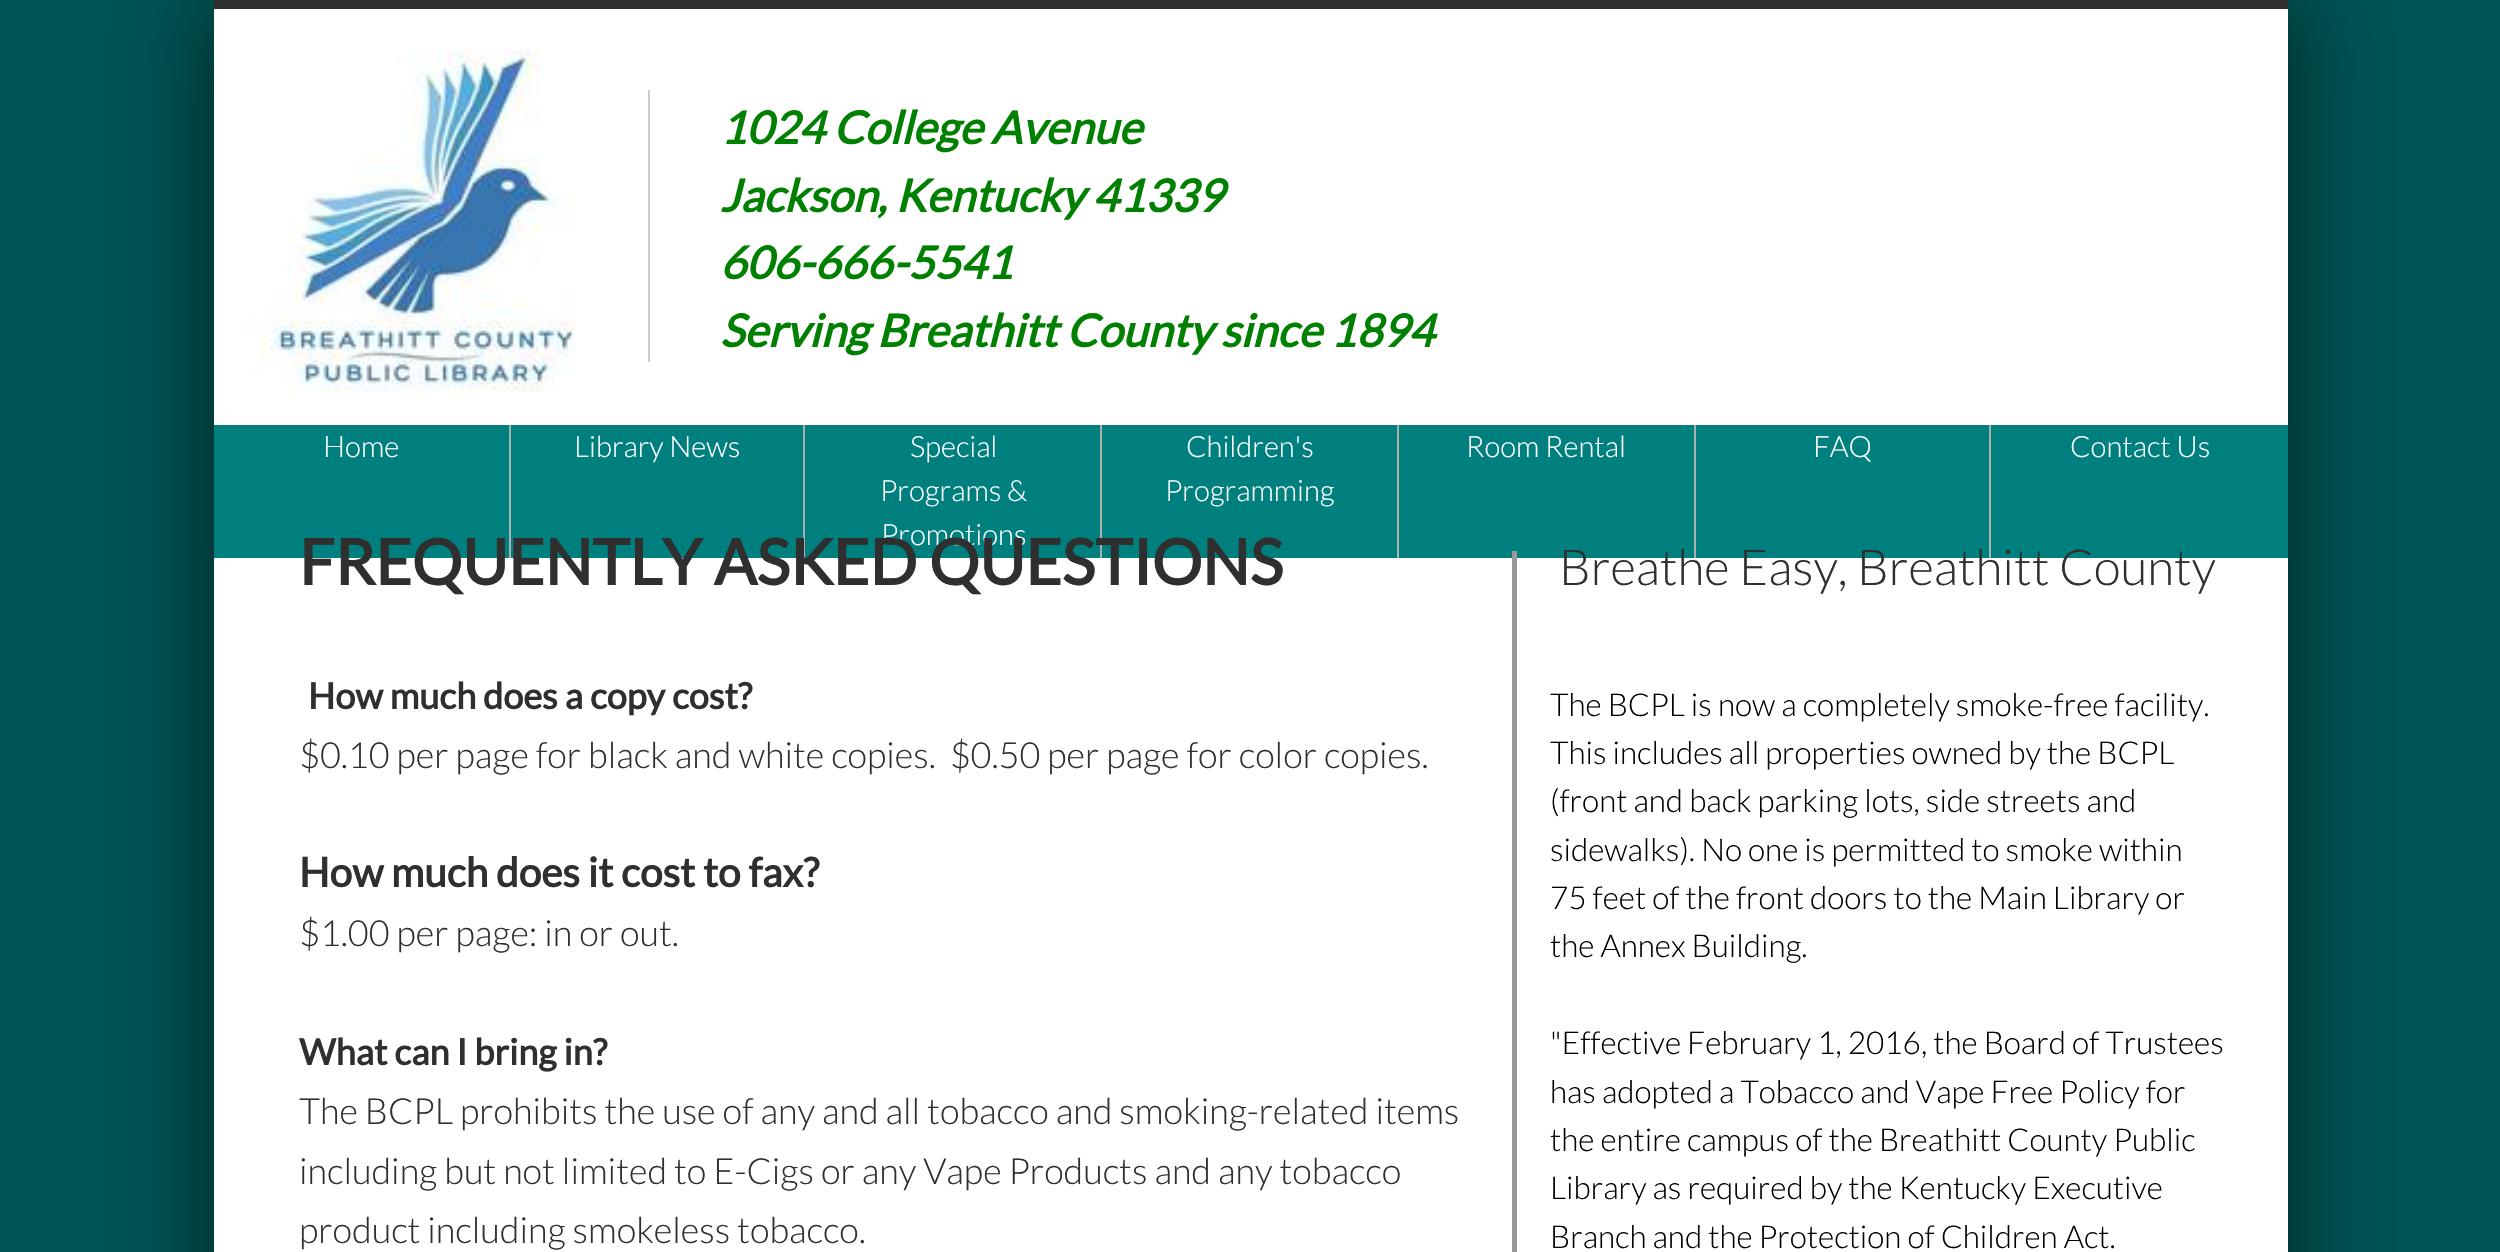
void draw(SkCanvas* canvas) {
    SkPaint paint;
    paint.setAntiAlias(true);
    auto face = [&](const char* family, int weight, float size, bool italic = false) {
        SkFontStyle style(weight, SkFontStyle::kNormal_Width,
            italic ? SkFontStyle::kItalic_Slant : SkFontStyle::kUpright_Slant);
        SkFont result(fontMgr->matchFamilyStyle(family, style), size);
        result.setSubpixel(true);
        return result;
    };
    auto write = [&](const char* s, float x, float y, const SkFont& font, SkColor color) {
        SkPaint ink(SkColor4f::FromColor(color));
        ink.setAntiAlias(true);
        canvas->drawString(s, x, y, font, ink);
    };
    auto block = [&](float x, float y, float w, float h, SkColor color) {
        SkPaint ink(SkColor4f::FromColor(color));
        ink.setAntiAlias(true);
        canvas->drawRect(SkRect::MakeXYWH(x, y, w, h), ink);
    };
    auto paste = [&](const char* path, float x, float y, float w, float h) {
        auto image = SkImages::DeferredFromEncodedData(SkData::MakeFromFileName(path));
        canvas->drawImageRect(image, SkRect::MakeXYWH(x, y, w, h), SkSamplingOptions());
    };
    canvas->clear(SkColorSetRGB(0, 84, 84));
    paint.setColor(SkColorSetARGB(153, 0, 0, 0));
    paint.setMaskFilter(SkMaskFilter::MakeBlur(kNormal_SkBlurStyle, 45));
    canvas->drawRect(SkRect::MakeXYWH(214, 0, 2074, 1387), paint);
    paint.setMaskFilter(nullptr);
    block(214, 9, 2074, 1243, SK_ColorWHITE);
    block(214, 0, 2074, 9, SkColorSetRGB(47, 47, 47));
    paste("pic1.png", 252, 49, 325, 347);
    block(648, 90, 2, 272, SkColorSetRGB(204, 204, 204));
    auto kFont1 = face("Lato", 700, 45, true);
    write("1024 College Avenue", 720, 144, kFont1, SkColorSetRGB(0, 128, 0));
    write("Jackson, Kentucky 41339", 720, 212, kFont1, SkColorSetRGB(0, 128, 0));
    write("606-666-5541", 720, 279, kFont1, SkColorSetRGB(0, 128, 0));
    write("Serving Breathitt County since 1894", 720, 347, kFont1, SkColorSetRGB(0, 128, 0));
    block(214, 425, 295, 133, SkColorSetRGB(0, 127, 127));
    block(509, 425, 2, 133, SkColorSetRGB(174, 174, 174));
    auto kFont2 = face("Lato", 300, 29.25f);
    write("Home", 323, 457, kFont2, SK_ColorWHITE);
    block(511, 425, 1478, 133, SkColorSetRGB(0, 127, 127));
    block(803, 425, 2, 133, SkColorSetRGB(174, 174, 174));
    write("Library News", 574, 457, kFont2, SK_ColorWHITE);
    block(1100, 425, 2, 133, SkColorSetRGB(174, 174, 174));
    write("Special", 910, 457, kFont2, SK_ColorWHITE);
    write("Programs &", 880, 501, kFont2, SK_ColorWHITE);
    write("Promotions", 881, 545, kFont2, SK_ColorWHITE);
    block(1397, 425, 2, 133, SkColorSetRGB(174, 174, 174));
    write("Children's", 1186, 457, kFont2, SK_ColorWHITE);
    write("Programming", 1165, 501, kFont2, SK_ColorWHITE);
    block(1694, 425, 2, 133, SkColorSetRGB(174, 174, 174));
    write("Room Rental", 1466, 457, kFont2, SK_ColorWHITE);
    block(1989, 425, 2, 133, SkColorSetRGB(174, 174, 174));
    write("FAQ", 1813, 457, kFont2, SK_ColorWHITE);
    block(1991, 425, 297, 133, SkColorSetRGB(0, 127, 127));
    write("Contact Us", 2070, 457, kFont2, SK_ColorWHITE);
    auto kFont3 = face("Lato", 700, 63);
    write("FREQUENTLY ASKED QUESTIONS", 299, 585, kFont3, SkColorSetRGB(47, 47, 47));
    block(1512, 551, 5, 701, SkColorSetRGB(153, 153, 153));
    auto kFont4 = face("Lato", 300, 49.5f);
    write("Breathe Easy, Breathitt County", 1559, 585, kFont4, SkColorSetRGB(47, 47, 47));
    auto kFont5 = face("Lato", 700, 36);
    write("How much does a copy cost?", 308, 709, kFont5, SkColorSetRGB(47, 47, 47));
    auto kFont6 = face("Lato", 300, 36);
    write("$0.10 per page for black and white copies.  $0.50 per page for color copies.", 299, 768, kFont6, SkColorSetRGB(47, 47, 47));
    auto kFont7 = face("Lato", 700, 40.5f);
    write("How much does it cost to fax?", 299, 887, kFont7, SkColorSetRGB(47, 47, 47));
    write("$1.00 per page: in or out.", 299, 946, kFont6, SkColorSetRGB(47, 47, 47));
    write("What can I bring in?", 299, 1065, kFont5, SkColorSetRGB(47, 47, 47));
    write("The BCPL prohibits the use of any and all tobacco and smoking-related items", 299, 1124, kFont6, SkColorSetRGB(47, 47, 47));
    write("including but not limited to E-Cigs or any Vape Products and any tobacco", 299, 1184, kFont6, SkColorSetRGB(47, 47, 47));
    write("product including smokeless tobacco.", 299, 1243, kFont6, SkColorSetRGB(47, 47, 47));
    auto kFont8 = face("Lato", 300, 31.5f);
    write("The BCPL is now a completely smoke-free facility.", 1550, 716, kFont8, SK_ColorBLACK);
    write("This includes all properties owned by the BCPL", 1550, 764, kFont8, SK_ColorBLACK);
    write("(front and back parking lots, side streets and", 1550, 812, kFont8, SK_ColorBLACK);
    write("sidewalks). No one is permitted to smoke within", 1550, 861, kFont8, SK_ColorBLACK);
    write("75 feet of the front doors to the Main Library or", 1550, 909, kFont8, SK_ColorBLACK);
    write("the Annex Building.", 1550, 957, kFont8, SK_ColorBLACK);
    write("\"Effective February 1, 2016, the Board of Trustees", 1550, 1054, kFont8, SK_ColorBLACK);
    write("has adopted a Tobacco and Vape Free Policy for", 1550, 1103, kFont8, SK_ColorBLACK);
    write("the entire campus of the Breathitt County Public", 1550, 1151, kFont8, SK_ColorBLACK);
    write("Library as required by the Kentucky Executive", 1550, 1199, kFont8, SK_ColorBLACK);
    write("Branch and the Protection of Children Act.", 1550, 1248, kFont8, SK_ColorBLACK);
}
